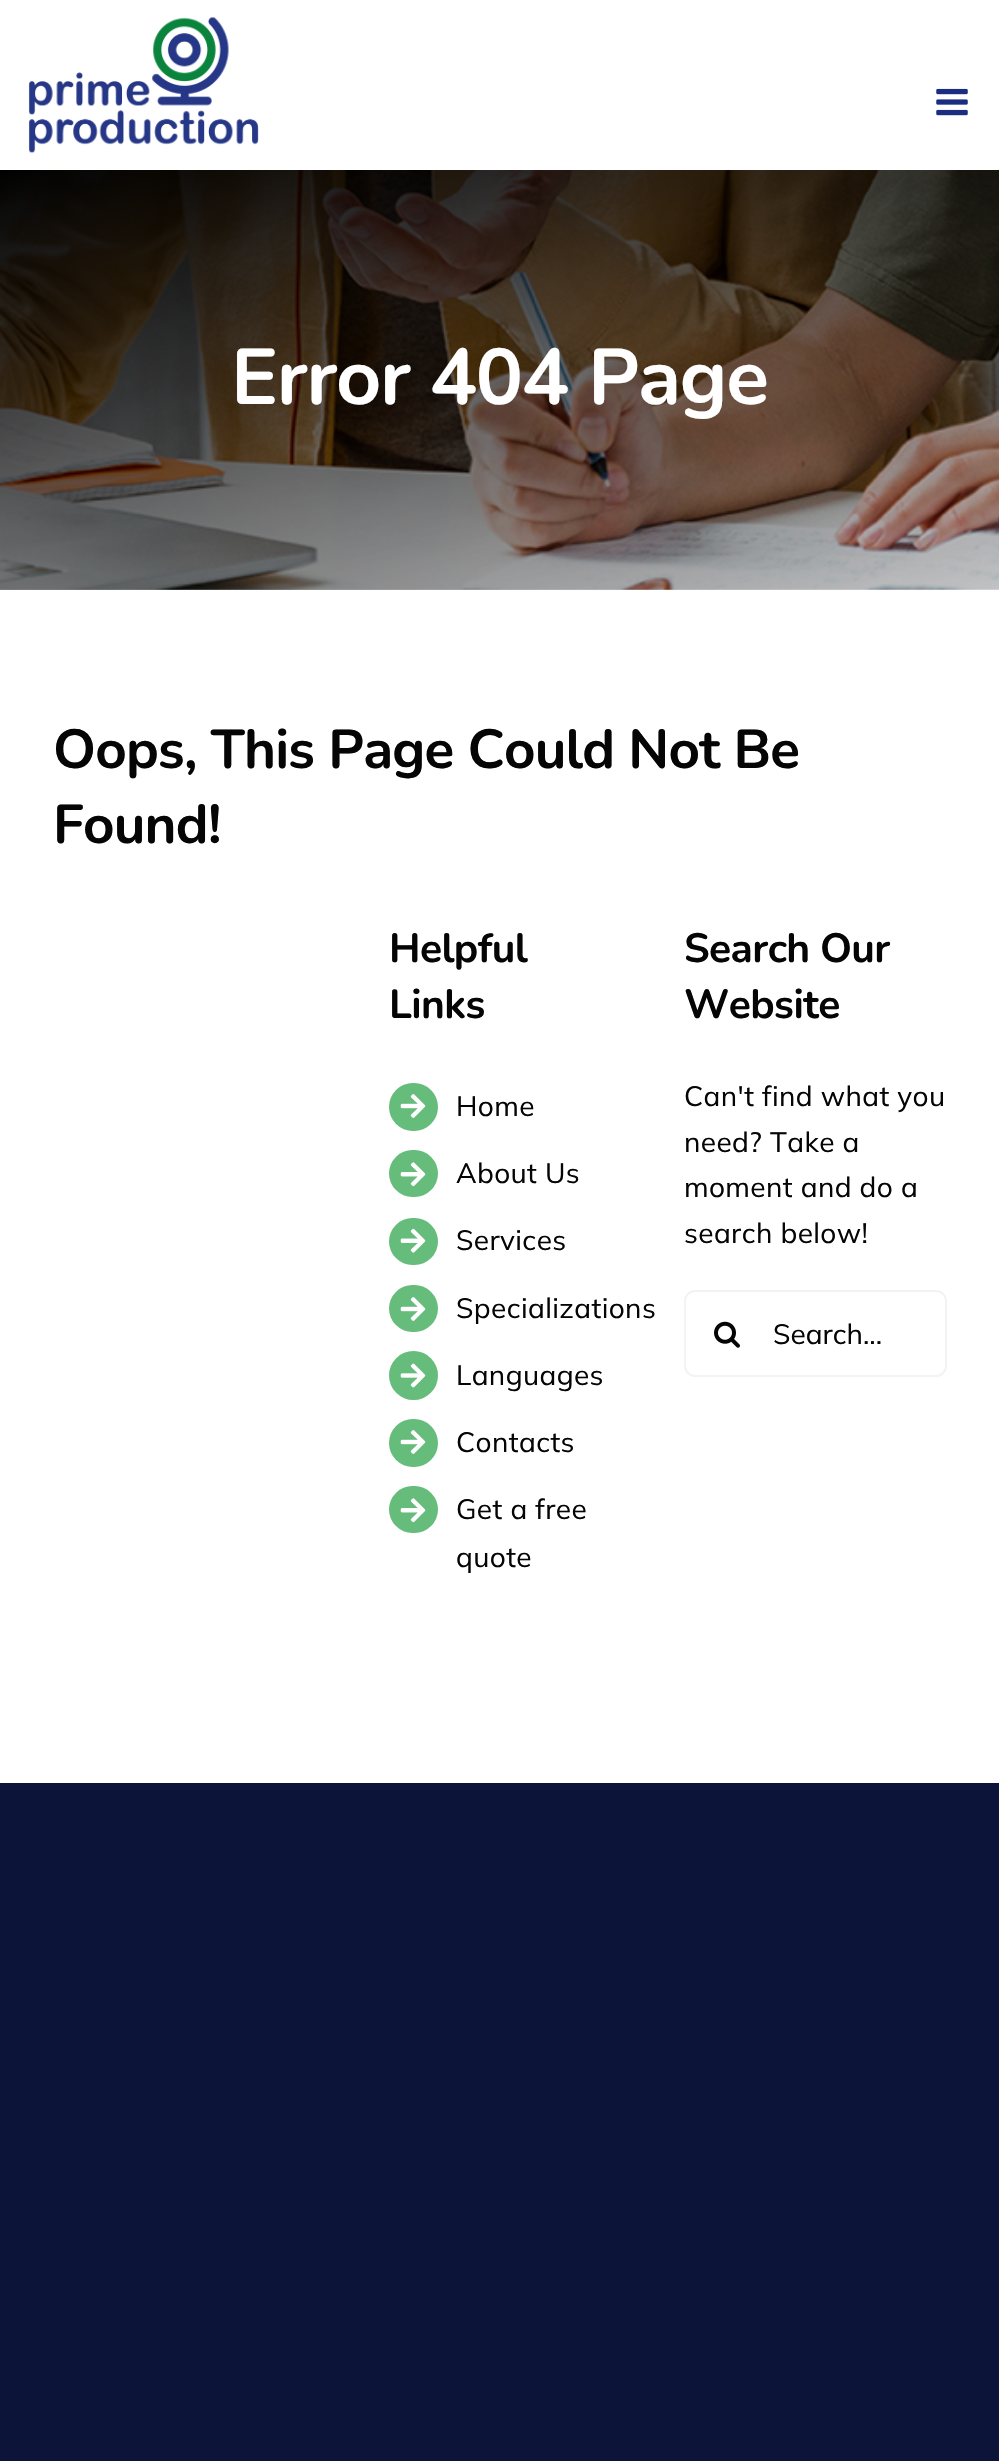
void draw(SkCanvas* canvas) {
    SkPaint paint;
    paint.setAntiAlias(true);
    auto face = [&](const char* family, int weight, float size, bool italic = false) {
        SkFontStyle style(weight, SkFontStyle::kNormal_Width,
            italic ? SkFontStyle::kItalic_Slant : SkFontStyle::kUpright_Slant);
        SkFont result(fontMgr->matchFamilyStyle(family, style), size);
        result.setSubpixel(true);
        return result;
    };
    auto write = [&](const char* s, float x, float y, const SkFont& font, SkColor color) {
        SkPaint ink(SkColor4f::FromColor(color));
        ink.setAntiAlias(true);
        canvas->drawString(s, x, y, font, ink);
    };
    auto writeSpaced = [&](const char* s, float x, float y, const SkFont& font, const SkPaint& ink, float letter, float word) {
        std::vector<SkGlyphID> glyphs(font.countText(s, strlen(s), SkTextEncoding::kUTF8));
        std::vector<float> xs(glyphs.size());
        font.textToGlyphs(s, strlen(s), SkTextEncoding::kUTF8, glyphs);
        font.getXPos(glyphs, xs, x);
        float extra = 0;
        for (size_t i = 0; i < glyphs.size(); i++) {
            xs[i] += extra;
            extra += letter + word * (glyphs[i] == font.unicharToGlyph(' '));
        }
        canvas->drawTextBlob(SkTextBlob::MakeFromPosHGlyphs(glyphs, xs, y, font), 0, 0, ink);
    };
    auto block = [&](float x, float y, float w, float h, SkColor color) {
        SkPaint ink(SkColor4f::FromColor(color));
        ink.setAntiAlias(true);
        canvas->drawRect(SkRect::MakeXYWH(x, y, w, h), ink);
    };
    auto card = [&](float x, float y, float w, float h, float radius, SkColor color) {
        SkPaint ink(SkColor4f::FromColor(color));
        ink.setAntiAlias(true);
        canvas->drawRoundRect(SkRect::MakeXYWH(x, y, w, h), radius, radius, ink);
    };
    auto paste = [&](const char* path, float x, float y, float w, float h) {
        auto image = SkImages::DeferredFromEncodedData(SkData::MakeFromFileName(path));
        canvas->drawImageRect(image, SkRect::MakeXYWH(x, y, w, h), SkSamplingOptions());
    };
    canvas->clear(SK_ColorWHITE);
    paste("pic1.png", 28, 17, 231, 136);
    paste("pic2.png", 936, 88, 32, 28);
    paste("pic3.png", 0, 170, 999, 420);
    {
        const SkColor colors[] = {SK_ColorBLACK, SkColorSetARGB(0, 0, 0, 0)};
        const float stops[] = {0, 1};
        const SkPoint ends[] = {{406, 53}, {593, 706}};
        paint.setShader(SkGradientShader::MakeLinear(ends, colors, stops, 2, SkTileMode::kClamp));
        paint.setAlpha(255);
    }
    canvas->drawRect(SkRect::MakeXYWH(0, 170, 999, 420), paint);
    auto kFont1 = face("Nunito", 200, 78.75f);
    paint.setShader(nullptr);
    paint.setColor(SK_ColorWHITE);
    writeSpaced("Error 404 Page", 231, 404, kFont1, paint, -1.25f, 0);
    auto kFont2 = face("Nunito", 200, 54.75f);
    paint.setColor(SkColorSetRGB(5, 5, 5));
    writeSpaced("Oops, This Page Could Not Be", 53, 768, kFont2, paint, -0.8f, 0);
    writeSpaced("Found!", 53, 843, kFont2, paint, -0.8f, 0);
    auto kFont3 = face("Nunito", 200, 40.75f);
    writeSpaced("Helpful", 389, 962, kFont3, paint, -0.6f, 0);
    writeSpaced("Links", 389, 1018, kFont3, paint, -0.6f, 0);
    card(389, 1083, 49, 48, 24, SkColorSetRGB(101, 188, 123));
    paste("pic4.png", 400, 1094, 26, 24);
    auto kFont4 = face("Mulish", 400, 28);
    writeSpaced("Home", 456, 1116, kFont4, paint, 0.4f, 0);
    card(389, 1150, 49, 47, 23.5f, SkColorSetRGB(101, 188, 123));
    paste("pic5.png", 400, 1162, 26, 25);
    writeSpaced("About Us", 456, 1183, kFont4, paint, 0.4f, 0);
    card(389, 1218, 49, 47, 23.5f, SkColorSetRGB(101, 188, 123));
    paste("pic6.png", 400, 1228, 26, 25);
    writeSpaced("Services", 456, 1250, kFont4, paint, 0.4f, 0);
    card(389, 1285, 49, 47, 23.5f, SkColorSetRGB(101, 188, 123));
    paste("pic4.png", 400, 1297, 26, 24);
    writeSpaced("Specializations", 456, 1318, kFont4, paint, 0.4f, 0);
    paint.setColor(SkColorSetRGB(101, 188, 123));
    canvas->drawCircle(413.5f, 1375.5f, 24.5f, paint);
    paste("pic7.png", 400, 1363, 26, 25);
    paint.setColor(SkColorSetRGB(5, 5, 5));
    writeSpaced("Languages", 456, 1385, kFont4, paint, 0.4f, 0);
    card(389, 1419, 49, 48, 24, SkColorSetRGB(101, 188, 123));
    paste("pic4.png", 400, 1430, 26, 24);
    writeSpaced("Contacts", 456, 1452, kFont4, paint, 0.4f, 0);
    card(389, 1486, 49, 47, 23.5f, SkColorSetRGB(101, 188, 123));
    paste("pic5.png", 400, 1498, 26, 25);
    writeSpaced("Get a free", 456, 1519, kFont4, paint, 0.4f, 0);
    writeSpaced("quote", 456, 1567, kFont4, paint, 0.4f, 0);
    writeSpaced("Search Our", 684, 962, kFont3, paint, -0.6f, 0);
    writeSpaced("Website", 684, 1018, kFont3, paint, -0.6f, 0);
    writeSpaced("Can't find what you", 684, 1106, kFont4, paint, 0.4f, 0);
    writeSpaced("need? Take a", 684, 1152, kFont4, paint, 0.4f, 0);
    writeSpaced("moment and do a", 684, 1197, kFont4, paint, 0.4f, 0);
    writeSpaced("search below!", 684, 1243, kFont4, paint, 0.4f, 0);
    paint.setStyle(SkPaint::kStroke_Style);
    paint.setStrokeWidth(2);
    paint.setColor(SkColorSetRGB(242, 243, 245));
    canvas->drawRoundRect(SkRect::MakeXYWH(685, 1291, 261, 85), 10, 10, paint);
    paste("pic8.png", 714, 1321, 26, 27);
    write("Search...", 773, 1344, kFont4, SkColorSetRGB(5, 5, 5));
    block(0, 1783, 999, 678, SkColorSetRGB(12, 20, 58));
}
